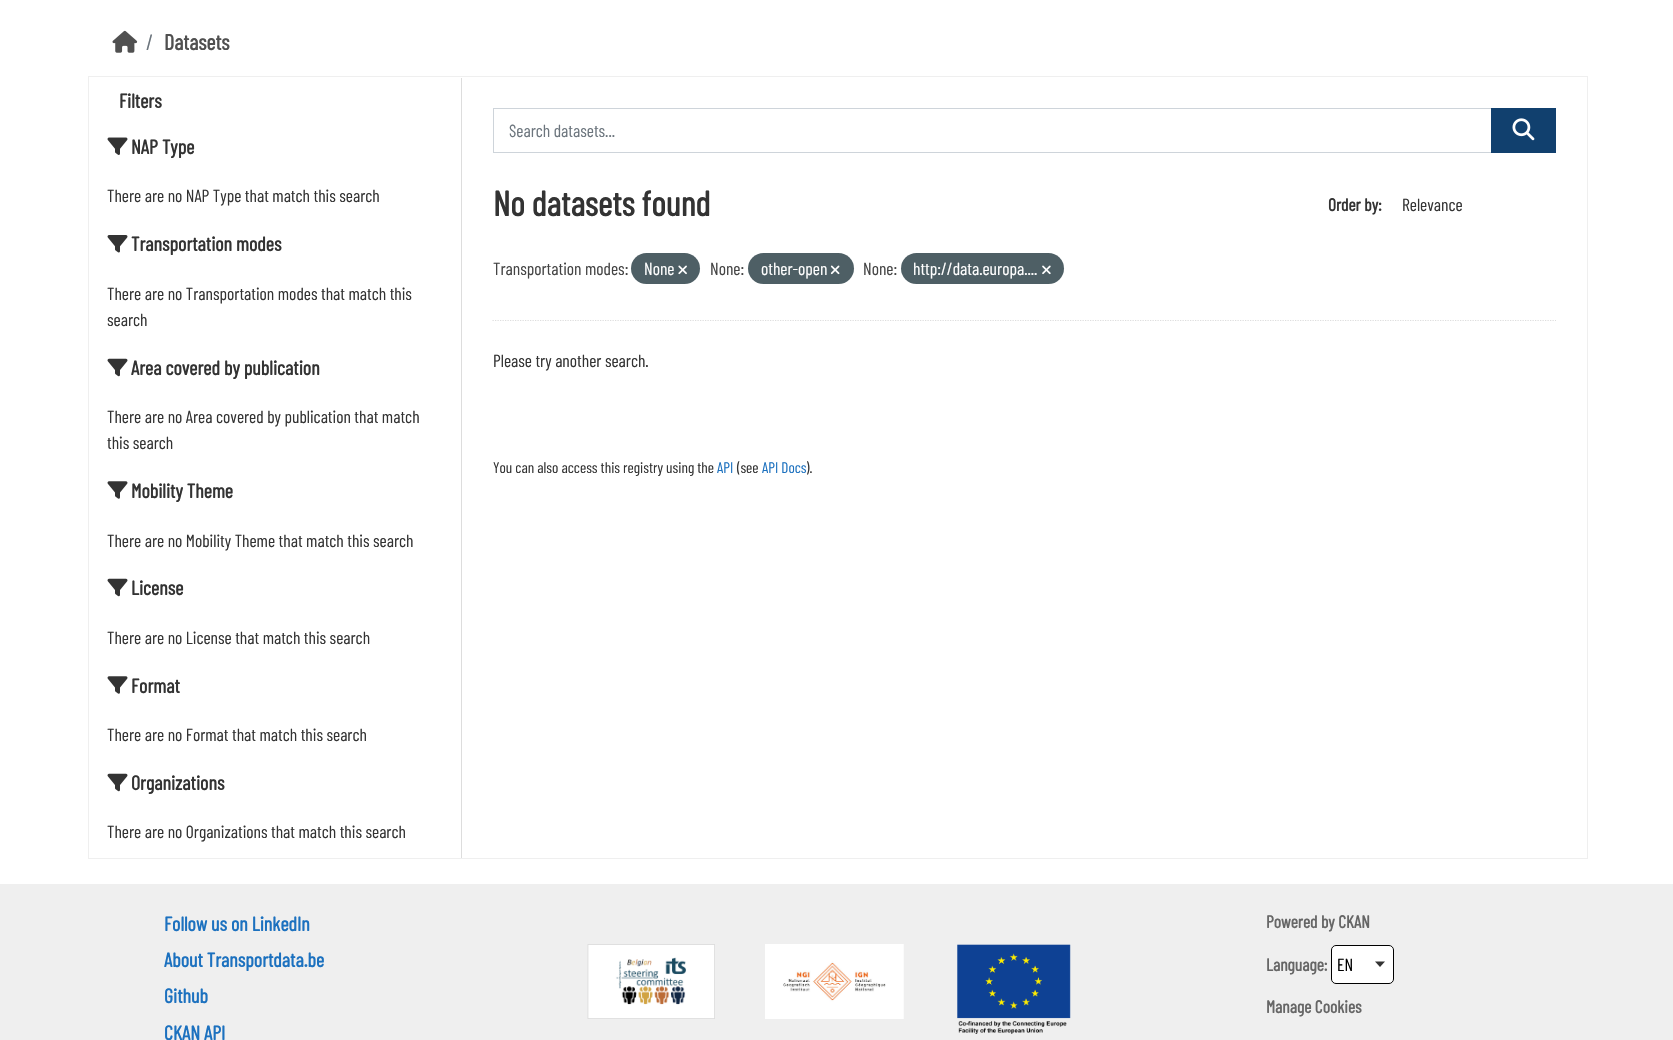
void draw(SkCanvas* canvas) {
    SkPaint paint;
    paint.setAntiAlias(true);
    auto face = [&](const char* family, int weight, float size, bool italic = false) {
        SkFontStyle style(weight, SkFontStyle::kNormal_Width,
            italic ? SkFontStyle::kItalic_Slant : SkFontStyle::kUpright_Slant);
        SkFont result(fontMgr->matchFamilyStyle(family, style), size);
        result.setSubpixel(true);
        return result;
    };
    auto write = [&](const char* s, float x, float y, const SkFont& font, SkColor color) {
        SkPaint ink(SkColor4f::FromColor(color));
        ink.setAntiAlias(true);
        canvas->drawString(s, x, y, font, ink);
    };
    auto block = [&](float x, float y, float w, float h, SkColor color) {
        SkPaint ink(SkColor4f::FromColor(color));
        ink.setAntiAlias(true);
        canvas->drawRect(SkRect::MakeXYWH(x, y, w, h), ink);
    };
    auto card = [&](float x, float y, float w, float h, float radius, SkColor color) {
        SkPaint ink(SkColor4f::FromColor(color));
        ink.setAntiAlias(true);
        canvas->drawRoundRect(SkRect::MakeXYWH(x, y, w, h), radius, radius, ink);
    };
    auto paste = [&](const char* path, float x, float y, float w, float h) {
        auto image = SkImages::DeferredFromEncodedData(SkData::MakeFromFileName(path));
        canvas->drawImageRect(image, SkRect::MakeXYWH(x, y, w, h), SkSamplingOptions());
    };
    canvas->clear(SK_ColorWHITE);
    paste("pic1.png", 112, 30, 26, 23);
    auto kFont1 = face("Barlow Condensed", 400, 22);
    write("/", 146, 50, kFont1, SkColorSetRGB(108, 117, 125));
    auto kFont2 = face("Barlow Condensed", 700, 22);
    write("Datasets", 164, 50, kFont2, SkColorSetRGB(80, 80, 80));
    paint.setStyle(SkPaint::kStroke_Style);
    paint.setStrokeWidth(1);
    paint.setColor(SkColorSetRGB(239, 239, 239));
    canvas->drawRect(SkRect::MakeXYWH(88.5f, 76.5f, 1499, 782), paint);
    auto kFont3 = face("Barlow Condensed", 700, 20);
    write("Filters", 119, 108, kFont3, SkColorSetRGB(51, 51, 51));
    paste("pic2.png", 107, 137, 21, 18);
    write("NAP Type", 131, 154, kFont3, SkColorSetRGB(51, 51, 51));
    auto kFont4 = face("Barlow Condensed", 400, 17.5f);
    write("There are no NAP Type that match this search", 107, 202, kFont4, SkColorSetRGB(51, 51, 51));
    paste("pic3.png", 107, 235, 21, 18);
    write("Transportation modes", 131, 251, kFont3, SkColorSetRGB(51, 51, 51));
    write("There are no Transportation modes that match this", 107, 300, kFont4, SkColorSetRGB(51, 51, 51));
    write("search", 107, 326, kFont4, SkColorSetRGB(51, 51, 51));
    paste("pic4.png", 107, 358, 21, 19);
    write("Area covered by publication", 131, 375, kFont3, SkColorSetRGB(51, 51, 51));
    write("There are no Area covered by publication that match", 107, 423, kFont4, SkColorSetRGB(51, 51, 51));
    write("this search", 107, 449, kFont4, SkColorSetRGB(51, 51, 51));
    paste("pic5.png", 107, 481, 21, 18);
    write("Mobility Theme", 131, 498, kFont3, SkColorSetRGB(51, 51, 51));
    write("There are no Mobility Theme that match this search", 107, 547, kFont4, SkColorSetRGB(51, 51, 51));
    paste("pic4.png", 107, 578, 21, 19);
    write("License", 131, 595, kFont3, SkColorSetRGB(51, 51, 51));
    write("There are no License that match this search", 107, 644, kFont4, SkColorSetRGB(51, 51, 51));
    paste("pic5.png", 107, 676, 21, 18);
    write("Format", 131, 693, kFont3, SkColorSetRGB(51, 51, 51));
    write("There are no Format that match this search", 107, 741, kFont4, SkColorSetRGB(51, 51, 51));
    paste("pic4.png", 107, 773, 21, 19);
    write("Organizations", 131, 790, kFont3, SkColorSetRGB(51, 51, 51));
    write("There are no Organizations that match this search", 107, 838, kFont4, SkColorSetRGB(51, 51, 51));
    block(461, 78, 1, 780, SkColorSetRGB(221, 221, 221));
    paint.setStrokeWidth(1.2f);
    paint.setColor(SkColorSetRGB(221, 221, 221));
    paint.setPathEffect(SkDashPathEffect::Make({{1.25f, 1.25f}}, 0));
    canvas->drawPath(SkPathBuilder().moveTo(492.5f, 320.5f).lineTo(1556, 320.5f).detach(), paint);
    paint.setPathEffect(nullptr);
    paint.setStrokeWidth(1);
    paint.setColor(SkColorSetRGB(206, 212, 218));
    canvas->drawRect(SkRect::MakeXYWH(493.5f, 108.5f, 999, 44), paint);
    write("Search datasets...", 509, 137, kFont4, SkColorSetRGB(108, 117, 125));
    block(1491, 108, 65, 45, SkColorSetRGB(17, 64, 110));
    paste("pic6.png", 1512, 118, 23, 23);
    auto kFont5 = face("Barlow Condensed", 700, 35);
    write("No datasets found", 493, 216, kFont5, SkColorSetRGB(51, 51, 51));
    auto kFont6 = face("Barlow Condensed", 700, 17.5f);
    write("Order by:", 1328, 211, kFont6, SkColorSetRGB(51, 51, 51));
    write("Relevance", 1402, 211, kFont4, SkColorSetRGB(51, 51, 51));
    write("Transportation modes:", 493, 275, kFont4, SkColorSetRGB(68, 68, 68));
    card(631, 253, 69, 31, 15.5f, SkColorSetRGB(78, 95, 101));
    write("None", 644, 275, kFont4, SK_ColorWHITE);
    paste("pic7.png", 678, 265, 9, 10);
    write("None:", 710, 275, kFont4, SkColorSetRGB(68, 68, 68));
    card(748, 253, 106, 31, 15.5f, SkColorSetRGB(78, 95, 101));
    write("other-open", 761, 275, kFont4, SK_ColorWHITE);
    paste("pic8.png", 830, 265, 10, 10);
    write("None:", 863, 275, kFont4, SkColorSetRGB(68, 68, 68));
    card(901, 253, 163, 31, 15.5f, SkColorSetRGB(78, 95, 101));
    write("http://data.europa....", 913, 275, kFont4, SK_ColorWHITE);
    paste("pic9.png", 1042, 265, 9, 10);
    write("Please try another search.", 493, 367, kFont4, SkColorSetRGB(51, 51, 51));
    auto kFont7 = face("Barlow Condensed", 400, 15.25f);
    write("You can also access this registry using the", 493, 473, kFont7, SkColorSetRGB(51, 51, 51));
    write("API", 717, 473, kFont7, SkColorSetRGB(28, 113, 191));
    write("(see", 737, 473, kFont7, SkColorSetRGB(51, 51, 51));
    write("API Docs", 762, 473, kFont7, SkColorSetRGB(28, 113, 191));
    write(").", 806, 473, kFont7, SkColorSetRGB(51, 51, 51));
    block(0, 884, 1673, 156, SkColorSetRGB(239, 239, 239));
    write("Follow us on LinkedIn", 164, 931, kFont3, SkColorSetRGB(28, 113, 191));
    write("About Transportdata.be", 164, 967, kFont3, SkColorSetRGB(28, 113, 191));
    write("Github", 164, 1003, kFont3, SkColorSetRGB(28, 113, 191));
    write("CKAN API", 164, 1040, kFont3, SkColorSetRGB(28, 113, 191));
    paste("pic10.png", 587, 944, 128, 75);
    paste("pic11.png", 765, 944, 139, 75);
    paste("pic12.png", 957, 944, 114, 90);
    write("Powered by CKAN", 1266, 928, kFont6, SkColorSetRGB(102, 102, 102));
    write("Language:", 1266, 971, kFont6, SkColorSetRGB(102, 102, 102));
    card(1331, 945, 63, 39, 5, SK_ColorWHITE);
    paint.setStyle(SkPaint::kFill_Style);
    paint.setColor(SkColorSetRGB(51, 51, 51));
    canvas->drawPath(SkPathBuilder().moveTo(1375, 961.5f).lineTo(1380, 967).lineTo(1385, 961.5f).close().detach(), paint);
    paint.setStyle(SkPaint::kStroke_Style);
    paint.setColor(SK_ColorBLACK);
    canvas->drawRoundRect(SkRect::MakeXYWH(1331.5f, 945.5f, 62, 38), 4.5f, 4.5f, paint);
    write("EN", 1337, 971, kFont4, SK_ColorBLACK);
    write("Manage Cookies", 1266, 1013, kFont6, SkColorSetRGB(102, 102, 102));
}
